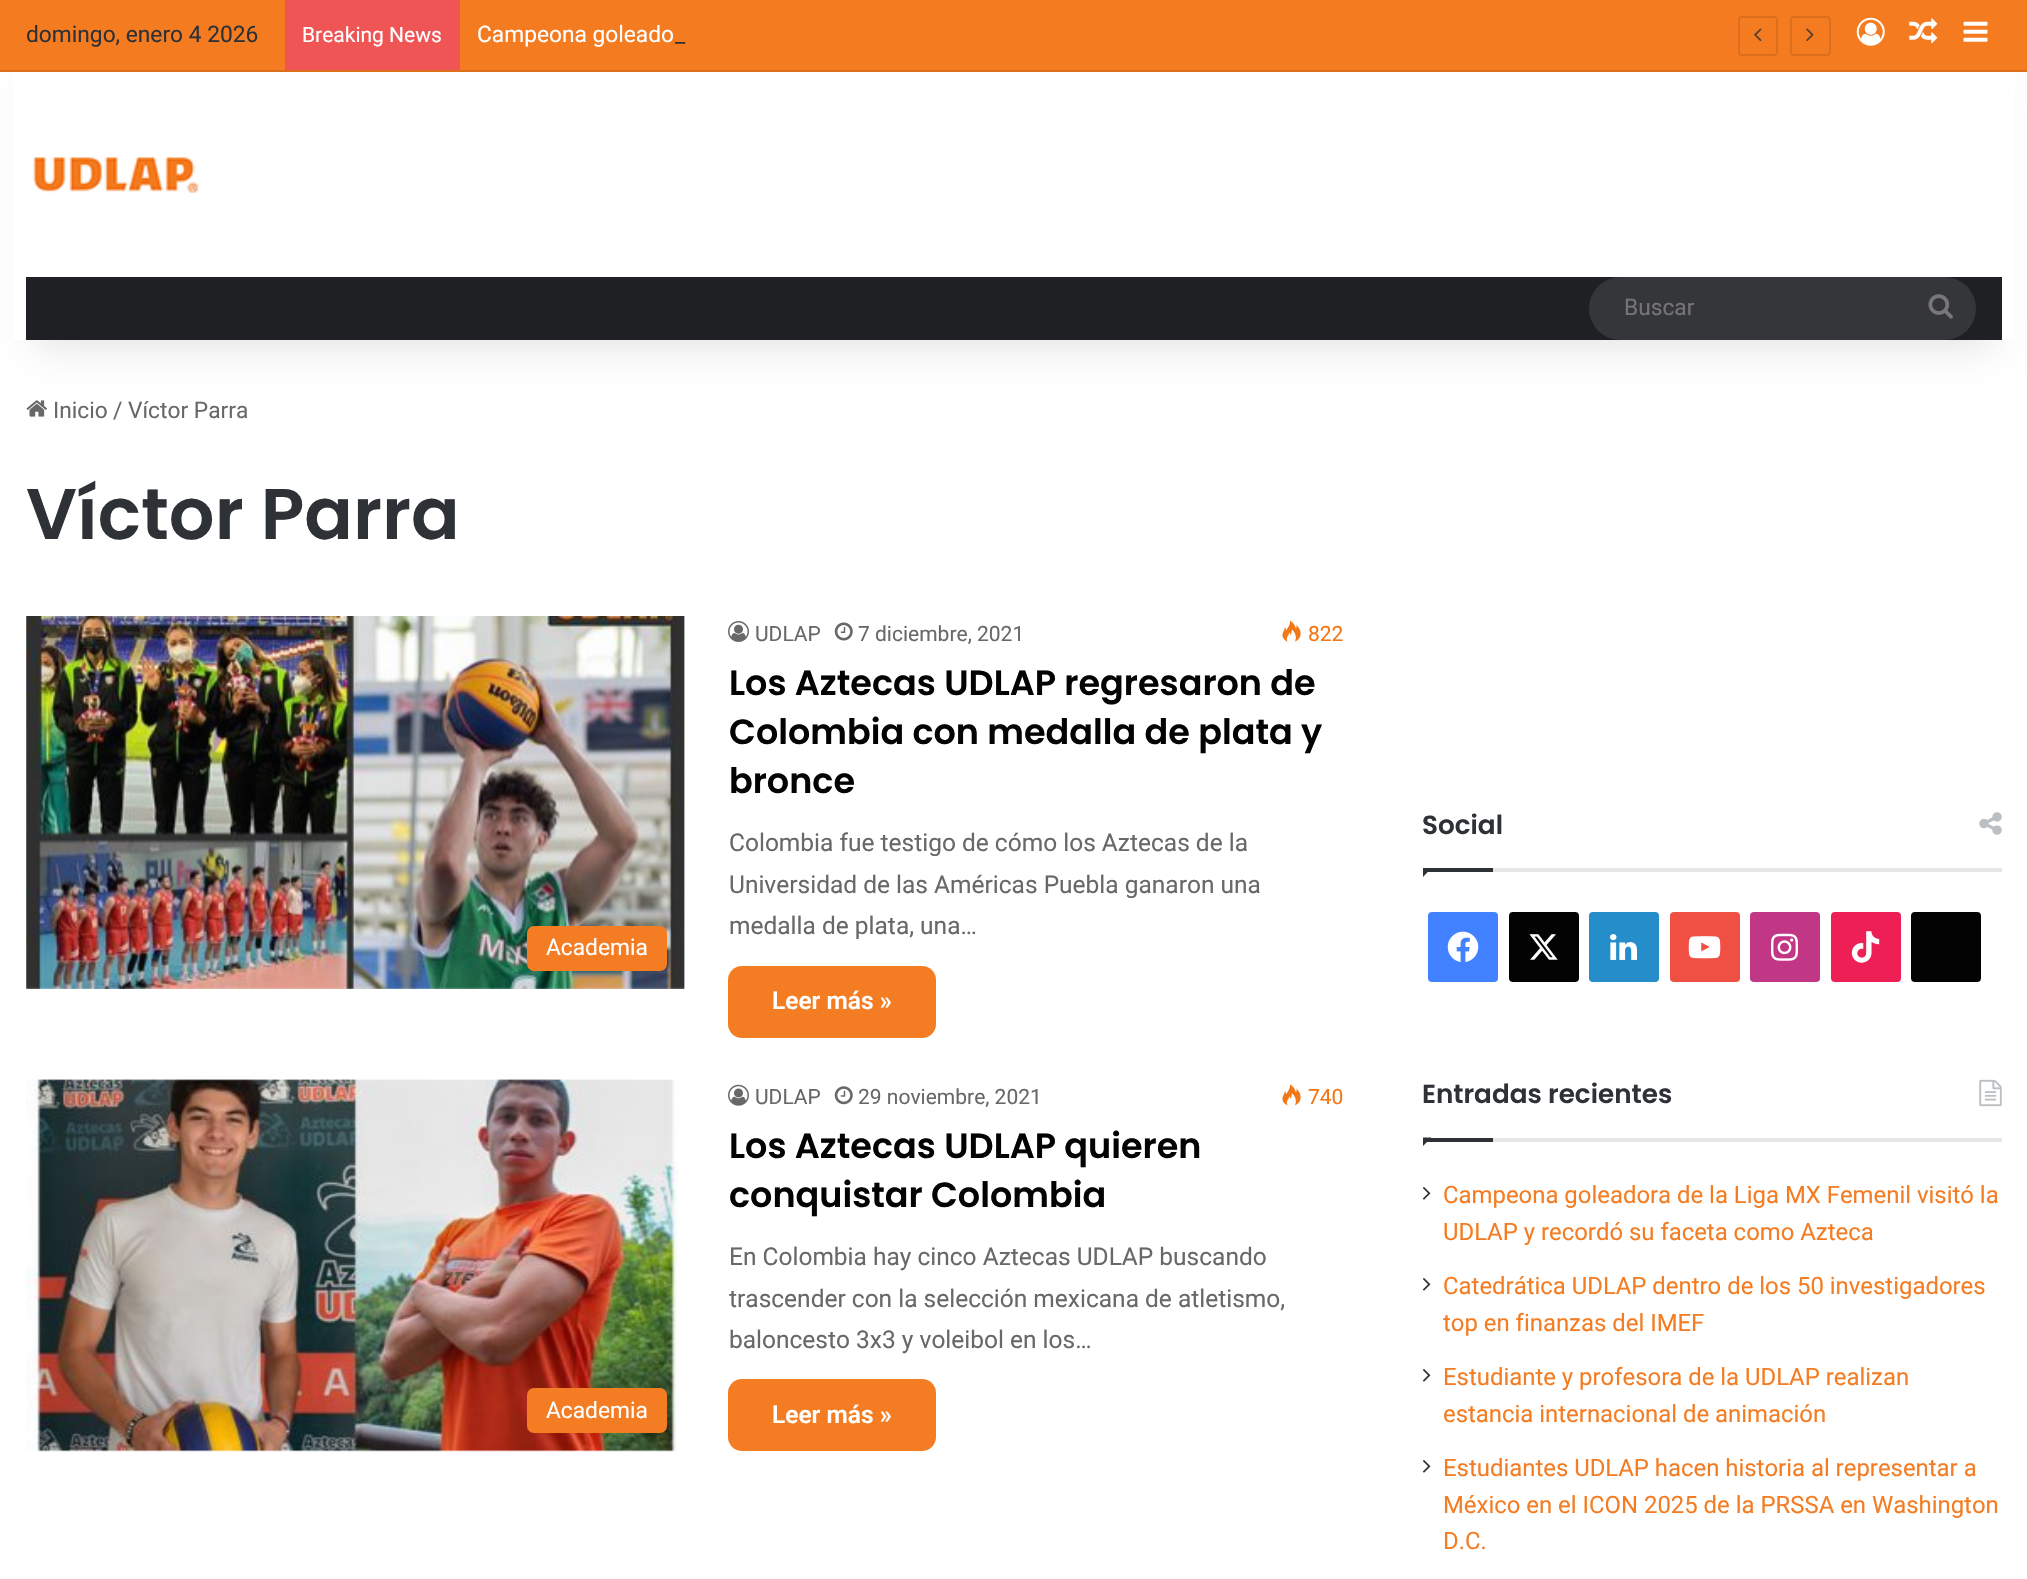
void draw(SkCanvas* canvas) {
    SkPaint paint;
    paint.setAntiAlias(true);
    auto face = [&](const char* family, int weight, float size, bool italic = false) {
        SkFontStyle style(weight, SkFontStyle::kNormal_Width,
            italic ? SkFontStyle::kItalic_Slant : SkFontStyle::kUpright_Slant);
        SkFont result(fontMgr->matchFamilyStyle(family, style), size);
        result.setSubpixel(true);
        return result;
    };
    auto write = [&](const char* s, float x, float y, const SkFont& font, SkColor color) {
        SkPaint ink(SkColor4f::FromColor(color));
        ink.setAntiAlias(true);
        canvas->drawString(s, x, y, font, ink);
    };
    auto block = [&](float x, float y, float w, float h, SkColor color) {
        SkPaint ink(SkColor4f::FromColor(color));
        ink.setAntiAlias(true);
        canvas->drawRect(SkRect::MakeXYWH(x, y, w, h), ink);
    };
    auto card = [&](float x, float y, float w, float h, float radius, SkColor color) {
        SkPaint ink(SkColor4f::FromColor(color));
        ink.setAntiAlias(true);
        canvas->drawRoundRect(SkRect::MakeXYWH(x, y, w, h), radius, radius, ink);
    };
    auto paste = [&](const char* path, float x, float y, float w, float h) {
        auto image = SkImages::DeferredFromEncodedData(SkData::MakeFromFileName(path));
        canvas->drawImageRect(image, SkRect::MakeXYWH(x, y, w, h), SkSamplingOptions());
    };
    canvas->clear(SK_ColorWHITE);
    paste("pic8.png", 26, 400, 21, 17);
    paint.setColor(SkColorSetARGB(26, 0, 0, 0));
    paint.setMaskFilter(SkMaskFilter::MakeBlur(kNormal_SkBlurStyle, 17.5f));
    canvas->drawRect(SkRect::MakeXYWH(35, 79, 1958, 269), paint);
    paint.setMaskFilter(nullptr);
    block(13, 72, 2002, 268, SK_ColorWHITE);
    block(0, 0, 2027, 70, SkColorSetRGB(244, 123, 32));
    block(0, 70, 2027, 2, SkColorSetRGB(220, 111, 29));
    auto kFont1 = face("Roboto", 400, 22.75f);
    write("domingo, enero 4 2026", 26, 42, kFont1, SkColorSetRGB(46, 49, 54));
    block(285, 0, 175, 70, SkColorSetRGB(240, 85, 85));
    auto kFont2 = face("Roboto", 400, 21);
    write("Breaking News", 302, 42, kFont2, SK_ColorWHITE);
    write("Campeona goleado", 477, 42, kFont1, SK_ColorWHITE);
    write("_", 675, 42, kFont1, SkColorSetRGB(46, 49, 54));
    paint.setStyle(SkPaint::kStroke_Style);
    paint.setStrokeWidth(2);
    paint.setColor(SkColorSetRGB(220, 111, 29));
    canvas->drawRoundRect(SkRect::MakeXYWH(1739, 17, 38, 38), 3, 3, paint);
    paste("pic1.png", 1754, 28, 8, 14);
    canvas->drawRoundRect(SkRect::MakeXYWH(1791, 17, 39, 38), 3, 3, paint);
    paste("pic2.png", 1806, 28, 8, 14);
    paste("pic3.png", 1856, 17, 29, 29);
    paste("pic4.png", 1909, 18, 29, 26);
    paste("pic5.png", 1963, 21, 25, 21);
    paste("pic6.png", 30, 157, 170, 38);
    block(26, 277, 1976, 63, SkColorSetRGB(31, 32, 36));
    card(1589, 277, 387, 63, 31.5f, SkColorSetRGB(53, 54, 58));
    write("Buscar", 1624, 315, kFont1, SkColorSetRGB(117, 117, 117));
    paste("pic7.png", 1928, 294, 25, 25);
    write("Inicio", 53, 418, kFont1, SkColorSetRGB(104, 104, 104));
    write("/", 113, 418, kFont1, SkColorSetRGB(104, 104, 104));
    write("Víctor Parra", 128, 418, kFont1, SkColorSetRGB(104, 104, 104));
    auto kFont3 = face("Poppins", 600, 71.75f);
    write("Víctor Parra", 26, 539, kFont3, SkColorSetRGB(46, 49, 54));
    paste("pic9.png", 26, 616, 659, 373);
    card(527, 926, 140, 45, 7, SkColorSetRGB(244, 124, 34));
    write("Academia", 546, 955, kFont1, SK_ColorWHITE);
    paste("pic10.png", 728, 621, 21, 21);
    write("UDLAP", 755, 641, kFont2, SkColorSetRGB(104, 104, 104));
    paste("pic11.png", 834, 622, 19, 19);
    write("7 diciembre, 2021", 858, 641, kFont2, SkColorSetRGB(104, 104, 104));
    paste("pic12.png", 1282, 620, 19, 22);
    write("822", 1308, 641, kFont2, SkColorSetRGB(244, 118, 20));
    auto kFont4 = face("Poppins", 600, 35);
    write("Los Aztecas UDLAP regresaron de", 729, 695, kFont4, SkColorSetRGB(3, 3, 3));
    write("Colombia con medalla de plata y", 729, 744, kFont4, SkColorSetRGB(3, 3, 3));
    write("bronce", 729, 793, kFont4, SkColorSetRGB(3, 3, 3));
    auto kFont5 = face("Roboto", 400, 24.5f);
    write("Colombia fue testigo de cómo los Aztecas de la", 729, 851, kFont5, SkColorSetRGB(104, 104, 104));
    write("Universidad de las Américas Puebla ganaron una", 729, 893, kFont5, SkColorSetRGB(104, 104, 104));
    write("medalla de plata, una…", 729, 934, kFont5, SkColorSetRGB(104, 104, 104));
    card(728, 966, 208, 72, 14, SkColorSetRGB(244, 124, 34));
    auto kFont6 = face("Roboto", 600, 24.5f);
    write("Leer más »", 772, 1009, kFont6, SK_ColorWHITE);
    paste("pic13.png", 26, 1079, 652, 373);
    card(527, 1388, 140, 45, 7, SkColorSetRGB(244, 124, 34));
    write("Academia", 546, 1418, kFont1, SK_ColorWHITE);
    paste("pic14.png", 728, 1084, 21, 22);
    write("UDLAP", 755, 1104, kFont2, SkColorSetRGB(104, 104, 104));
    paste("pic15.png", 834, 1086, 19, 19);
    write("29 noviembre, 2021", 858, 1104, kFont2, SkColorSetRGB(104, 104, 104));
    paste("pic16.png", 1282, 1084, 19, 22);
    write("740", 1308, 1104, kFont2, SkColorSetRGB(244, 118, 20));
    write("Los Aztecas UDLAP quieren", 729, 1158, kFont4, SkColorSetRGB(3, 3, 3));
    write("conquistar Colombia", 729, 1207, kFont4, SkColorSetRGB(3, 3, 3));
    write("En Colombia hay cinco Aztecas UDLAP buscando", 729, 1265, kFont5, SkColorSetRGB(104, 104, 104));
    write("trascender con la selección mexicana de atletismo,", 729, 1307, kFont5, SkColorSetRGB(104, 104, 104));
    write("baloncesto 3x3 y voleibol en los…", 729, 1348, kFont5, SkColorSetRGB(104, 104, 104));
    card(728, 1379, 208, 72, 14, SkColorSetRGB(244, 124, 34));
    write("Leer más »", 772, 1423, kFont6, SK_ColorWHITE);
    block(1493, 868, 509, 4, SkColorSetRGB(230, 230, 230));
    auto kFont7 = face("Poppins", 600, 26.25f);
    write("Social", 1422, 834, kFont7, SkColorSetRGB(46, 49, 54));
    paste("pic17.png", 1979, 812, 23, 23);
    paint.setStyle(SkPaint::kFill_Style);
    paint.setColor(SkColorSetRGB(46, 49, 54));
    canvas->drawPath(SkPathBuilder().moveTo(1423, 868).lineTo(1431.5f, 868).lineTo(1423, 877).close().detach(), paint);
    block(1423, 868, 70, 4, SkColorSetRGB(46, 49, 54));
    card(1428, 912, 70, 70, 4, SkColorSetRGB(66, 129, 255));
    paste("pic18.png", 1447, 931, 32, 31);
    card(1509, 912, 70, 70, 4, SkColorSetRGB(3, 3, 3));
    paste("pic19.png", 1529, 934, 29, 26);
    card(1589, 912, 70, 70, 4, SkColorSetRGB(37, 141, 201));
    paste("pic20.png", 1610, 934, 27, 26);
    card(1670, 912, 70, 70, 4, SkColorSetRGB(239, 80, 67));
    paste("pic21.png", 1688, 936, 33, 23);
    card(1750, 912, 70, 70, 4, SkColorSetRGB(194, 55, 133));
    paste("pic22.png", 1771, 933, 27, 28);
    card(1831, 912, 70, 70, 4, SkColorSetRGB(238, 31, 84));
    paste("pic23.png", 1851, 931, 29, 32);
    card(1911, 912, 70, 70, 4, SkColorSetRGB(3, 3, 3));
    block(1493, 1138, 509, 4, SkColorSetRGB(230, 230, 230));
    write("Entradas recientes", 1422, 1103, kFont7, SkColorSetRGB(46, 49, 54));
    paste("pic24.png", 1979, 1079, 23, 28);
    canvas->drawPath(SkPathBuilder().moveTo(1423, 1137.5f).lineTo(1431.5f, 1137.5f).lineTo(1423, 1146).close().detach(), paint);
    block(1423, 1138, 70, 4, SkColorSetRGB(46, 49, 54));
    paste("pic25.png", 1422, 1187, 9, 13);
    auto kFont8 = face("Roboto", 400, 23.9f);
    write("Campeona goleadora de la Liga MX Femenil visitó la", 1443, 1203, kFont8, SkColorSetRGB(244, 124, 34));
    write("UDLAP y recordó su faceta como Azteca", 1443, 1240, kFont8, SkColorSetRGB(244, 124, 34));
    paste("pic25.png", 1422, 1278, 9, 13);
    write("Catedrática UDLAP dentro de los 50 investigadores", 1443, 1294, kFont8, SkColorSetRGB(244, 124, 34));
    write("top en finanzas del IMEF", 1443, 1331, kFont8, SkColorSetRGB(244, 124, 34));
    paste("pic25.png", 1422, 1369, 9, 13);
    write("Estudiante y profesora de la UDLAP realizan", 1443, 1385, kFont8, SkColorSetRGB(244, 124, 34));
    write("estancia internacional de animación", 1443, 1422, kFont8, SkColorSetRGB(244, 124, 34));
    paste("pic25.png", 1422, 1460, 9, 13);
    write("Estudiantes UDLAP hacen historia al representar a", 1443, 1476, kFont8, SkColorSetRGB(244, 124, 34));
    write("México en el ICON 2025 de la PRSSA en Washington", 1443, 1513, kFont8, SkColorSetRGB(244, 124, 34));
    write("D.C.", 1443, 1549, kFont8, SkColorSetRGB(244, 124, 34));
}
